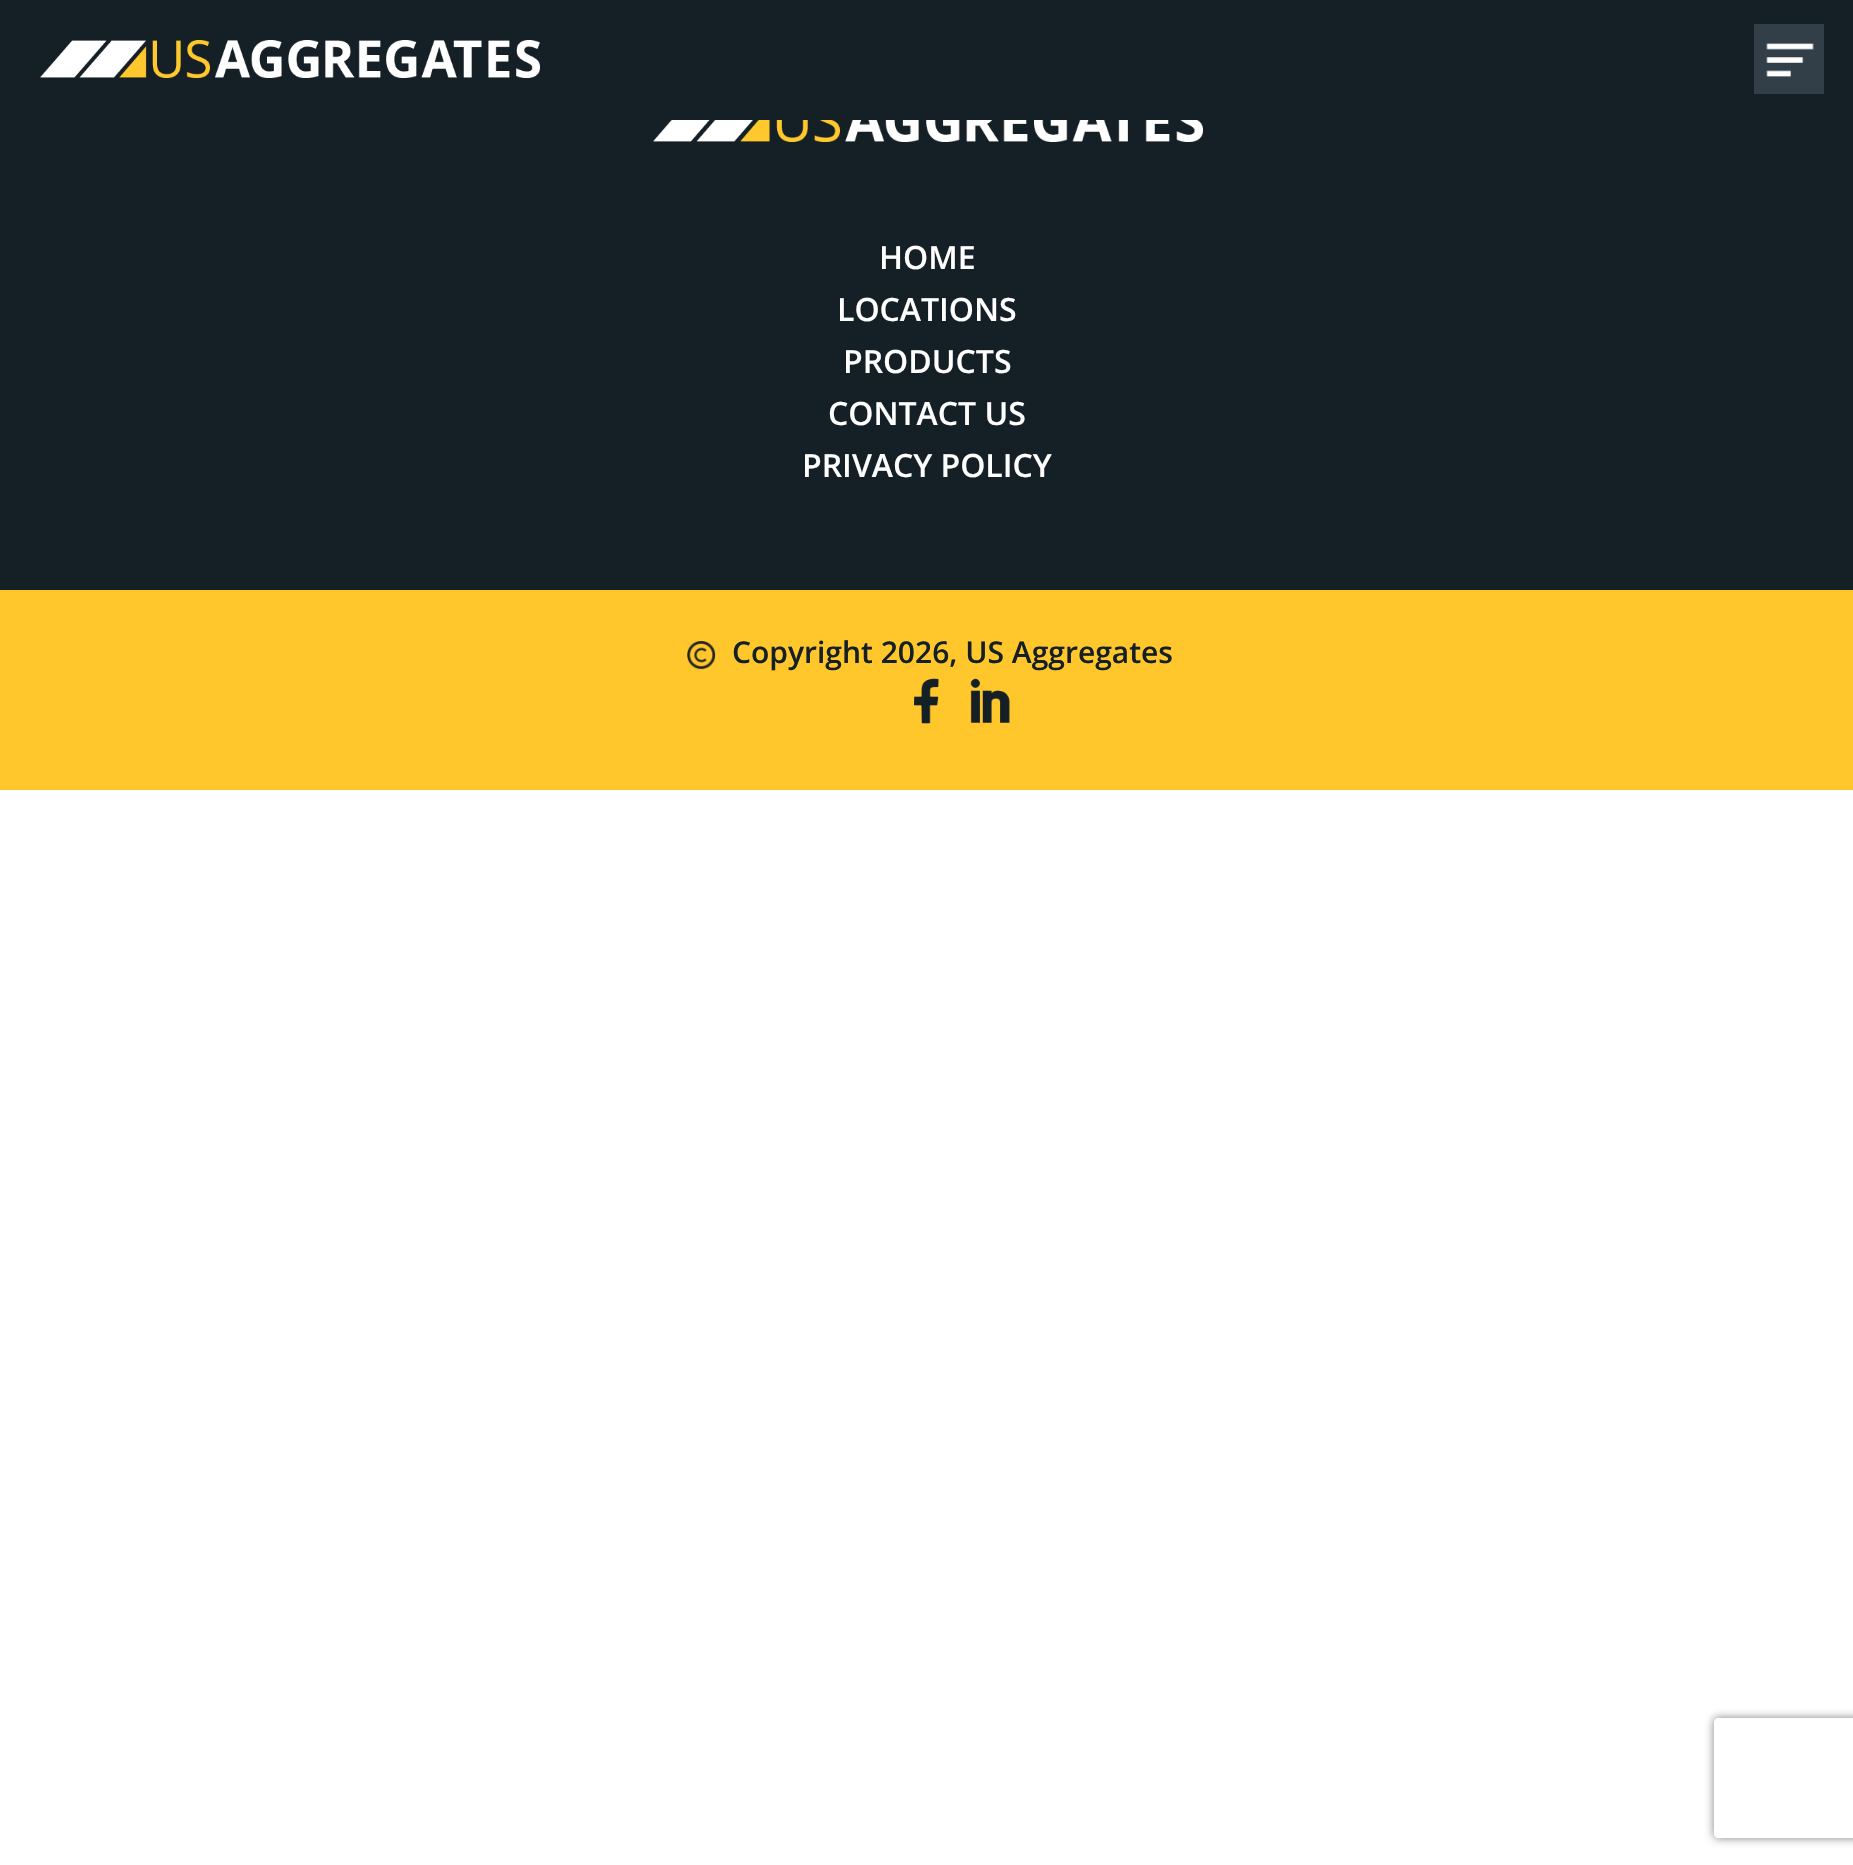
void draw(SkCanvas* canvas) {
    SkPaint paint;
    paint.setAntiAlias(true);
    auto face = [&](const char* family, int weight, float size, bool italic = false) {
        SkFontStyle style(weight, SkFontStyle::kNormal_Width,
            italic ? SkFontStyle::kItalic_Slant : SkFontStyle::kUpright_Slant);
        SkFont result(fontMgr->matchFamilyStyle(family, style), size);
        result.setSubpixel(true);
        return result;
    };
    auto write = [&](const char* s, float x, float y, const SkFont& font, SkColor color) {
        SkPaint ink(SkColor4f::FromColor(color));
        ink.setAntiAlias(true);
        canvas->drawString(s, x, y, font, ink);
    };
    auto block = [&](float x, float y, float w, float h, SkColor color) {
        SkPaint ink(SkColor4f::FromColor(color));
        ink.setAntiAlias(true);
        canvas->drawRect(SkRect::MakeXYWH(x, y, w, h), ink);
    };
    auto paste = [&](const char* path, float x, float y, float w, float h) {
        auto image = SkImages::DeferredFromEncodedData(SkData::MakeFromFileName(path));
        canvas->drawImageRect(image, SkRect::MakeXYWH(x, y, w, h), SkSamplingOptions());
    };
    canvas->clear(SK_ColorWHITE);
    block(0, 0, 1853, 590, SkColorSetRGB(21, 31, 38));
    paste("pic1.png", 40, 40, 500, 38);
    block(1754, 24, 70, 70, SkColorSetRGB(51, 63, 72));
    paste("pic2.png", 1766, 43, 48, 34);
    paste("pic3.png", 653, 120, 550, 22);
    auto kFont1 = face("Open Sans", 600, 32);
    write("HOME", 879, 269, kFont1, SK_ColorWHITE);
    write("LOCATIONS", 837, 321, kFont1, SK_ColorWHITE);
    write("PRODUCTS", 843, 373, kFont1, SK_ColorWHITE);
    write("CONTACT US", 828, 425, kFont1, SK_ColorWHITE);
    write("PRIVACY POLICY", 802, 477, kFont1, SK_ColorWHITE);
    block(0, 590, 1853, 200, SkColorSetRGB(255, 199, 44));
    paste("pic4.png", 687, 641, 29, 29);
    auto kFont2 = face("Open Sans", 600, 30);
    write("Copyright 2026, US Aggregates", 732, 663, kFont2, SkColorSetRGB(21, 31, 38));
    paste("pic5.png", 914, 678, 25, 46);
    paste("pic6.png", 970, 678, 40, 45);
    canvas->save();
    canvas->clipPath(SkPathBuilder(SkPathFillType::kEvenOdd).moveTo(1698, 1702).lineTo(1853, 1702).lineTo(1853, 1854).lineTo(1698, 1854).close().moveTo(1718, 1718).lineTo(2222, 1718).cubicTo(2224, 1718, 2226, 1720, 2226, 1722).lineTo(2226, 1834).cubicTo(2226, 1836, 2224, 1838, 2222, 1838).lineTo(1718, 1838).cubicTo(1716, 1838, 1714, 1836, 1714, 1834).lineTo(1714, 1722).cubicTo(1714, 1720, 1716, 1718, 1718, 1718).close().detach(), true);
    paint.setColor(SkColorSetRGB(128, 128, 128));
    paint.setMaskFilter(SkMaskFilter::MakeBlur(kNormal_SkBlurStyle, 5));
    canvas->drawRoundRect(SkRect::MakeXYWH(1714, 1718, 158, 120), 4, 4, paint);
    paint.setMaskFilter(nullptr);
    canvas->restore();
}
